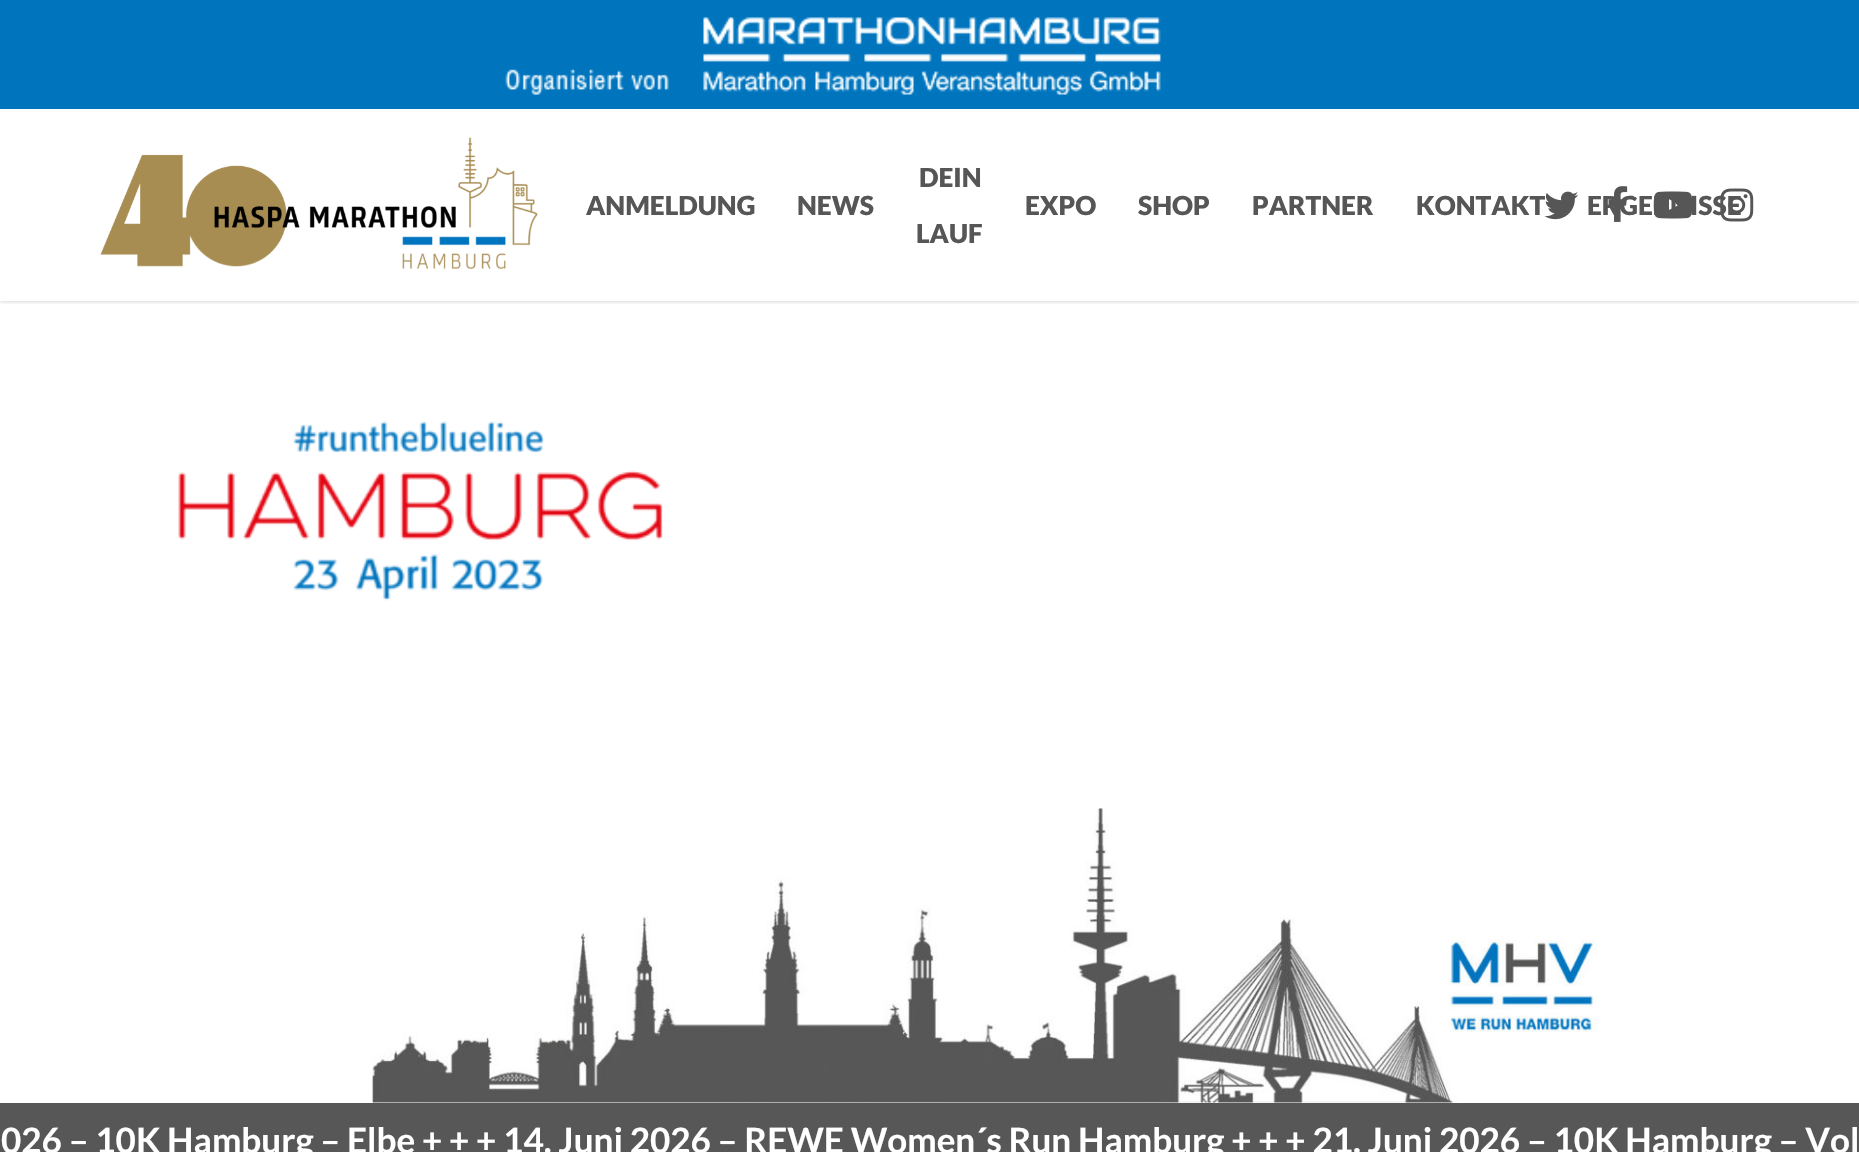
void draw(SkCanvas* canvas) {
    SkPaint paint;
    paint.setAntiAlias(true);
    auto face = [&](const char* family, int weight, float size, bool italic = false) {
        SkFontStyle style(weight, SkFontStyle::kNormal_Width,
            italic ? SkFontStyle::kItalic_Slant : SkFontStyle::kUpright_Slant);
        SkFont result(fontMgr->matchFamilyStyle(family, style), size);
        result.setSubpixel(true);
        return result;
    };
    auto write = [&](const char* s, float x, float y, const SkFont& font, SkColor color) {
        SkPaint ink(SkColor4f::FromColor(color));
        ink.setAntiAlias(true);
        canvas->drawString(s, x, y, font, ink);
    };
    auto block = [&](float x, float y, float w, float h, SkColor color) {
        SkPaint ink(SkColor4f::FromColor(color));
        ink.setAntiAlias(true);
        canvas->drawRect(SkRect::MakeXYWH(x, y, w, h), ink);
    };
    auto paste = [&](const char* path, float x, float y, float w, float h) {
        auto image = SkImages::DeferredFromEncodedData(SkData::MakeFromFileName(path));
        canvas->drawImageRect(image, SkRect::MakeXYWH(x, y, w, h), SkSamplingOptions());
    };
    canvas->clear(SK_ColorWHITE);
    canvas->save();
    canvas->clipRect(SkRect::MakeXYWH(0, 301, 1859, 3));
    paint.setColor(SkColorSetARGB(56, 0, 0, 0));
    paint.setMaskFilter(SkMaskFilter::MakeBlur(kNormal_SkBlurStyle, 2.5f));
    canvas->drawRect(SkRect::MakeXYWH(0, 0, 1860, 301), paint);
    paint.setMaskFilter(nullptr);
    canvas->restore();
    block(0, 0, 1859, 109, SkColorSetRGB(0, 117, 190));
    paste("pic1.png", 505, 17, 656, 78);
    paste("pic2.png", 100, 137, 438, 132);
    auto kFont1 = face("Lato", 900, 26.25f);
    write("ANMELDUNG", 586, 215, kFont1, SkColorSetRGB(87, 86, 86));
    write("NEWS", 797, 215, kFont1, SkColorSetRGB(87, 86, 86));
    write("DEIN", 919, 187, kFont1, SkColorSetRGB(87, 86, 86));
    write("LAUF", 916, 243, kFont1, SkColorSetRGB(87, 86, 86));
    write("EXPO", 1025, 215, kFont1, SkColorSetRGB(87, 86, 86));
    write("SHOP", 1138, 215, kFont1, SkColorSetRGB(87, 86, 86));
    write("PARTNER", 1252, 215, kFont1, SkColorSetRGB(87, 86, 86));
    write("KONTAKT", 1416, 215, kFont1, SkColorSetRGB(87, 86, 86));
    write("ERGEBNISSE", 1587, 215, kFont1, SkColorSetRGB(87, 86, 86));
    paste("pic3.png", 1544, 191, 35, 29);
    paste("pic4.png", 1608, 186, 20, 36);
    paste("pic5.png", 1653, 191, 39, 28);
    paste("pic6.png", 1720, 188, 34, 34);
    paste("pic7.png", 178, 421, 485, 180);
    paste("pic8.png", 372, 808, 1225, 295);
    block(0, 1103, 1859, 49, SkColorSetRGB(88, 87, 87));
    auto kFont2 = face("Lato", 700, 35);
    write("026 – 10K Hamburg – Elbe + + + 14. Juni 2026 – REWE Women´s Run Hamburg + + + 21. Juni 2026 – 10K Hamburg – Vol", 1, 1153, kFont2, SK_ColorWHITE);
}
